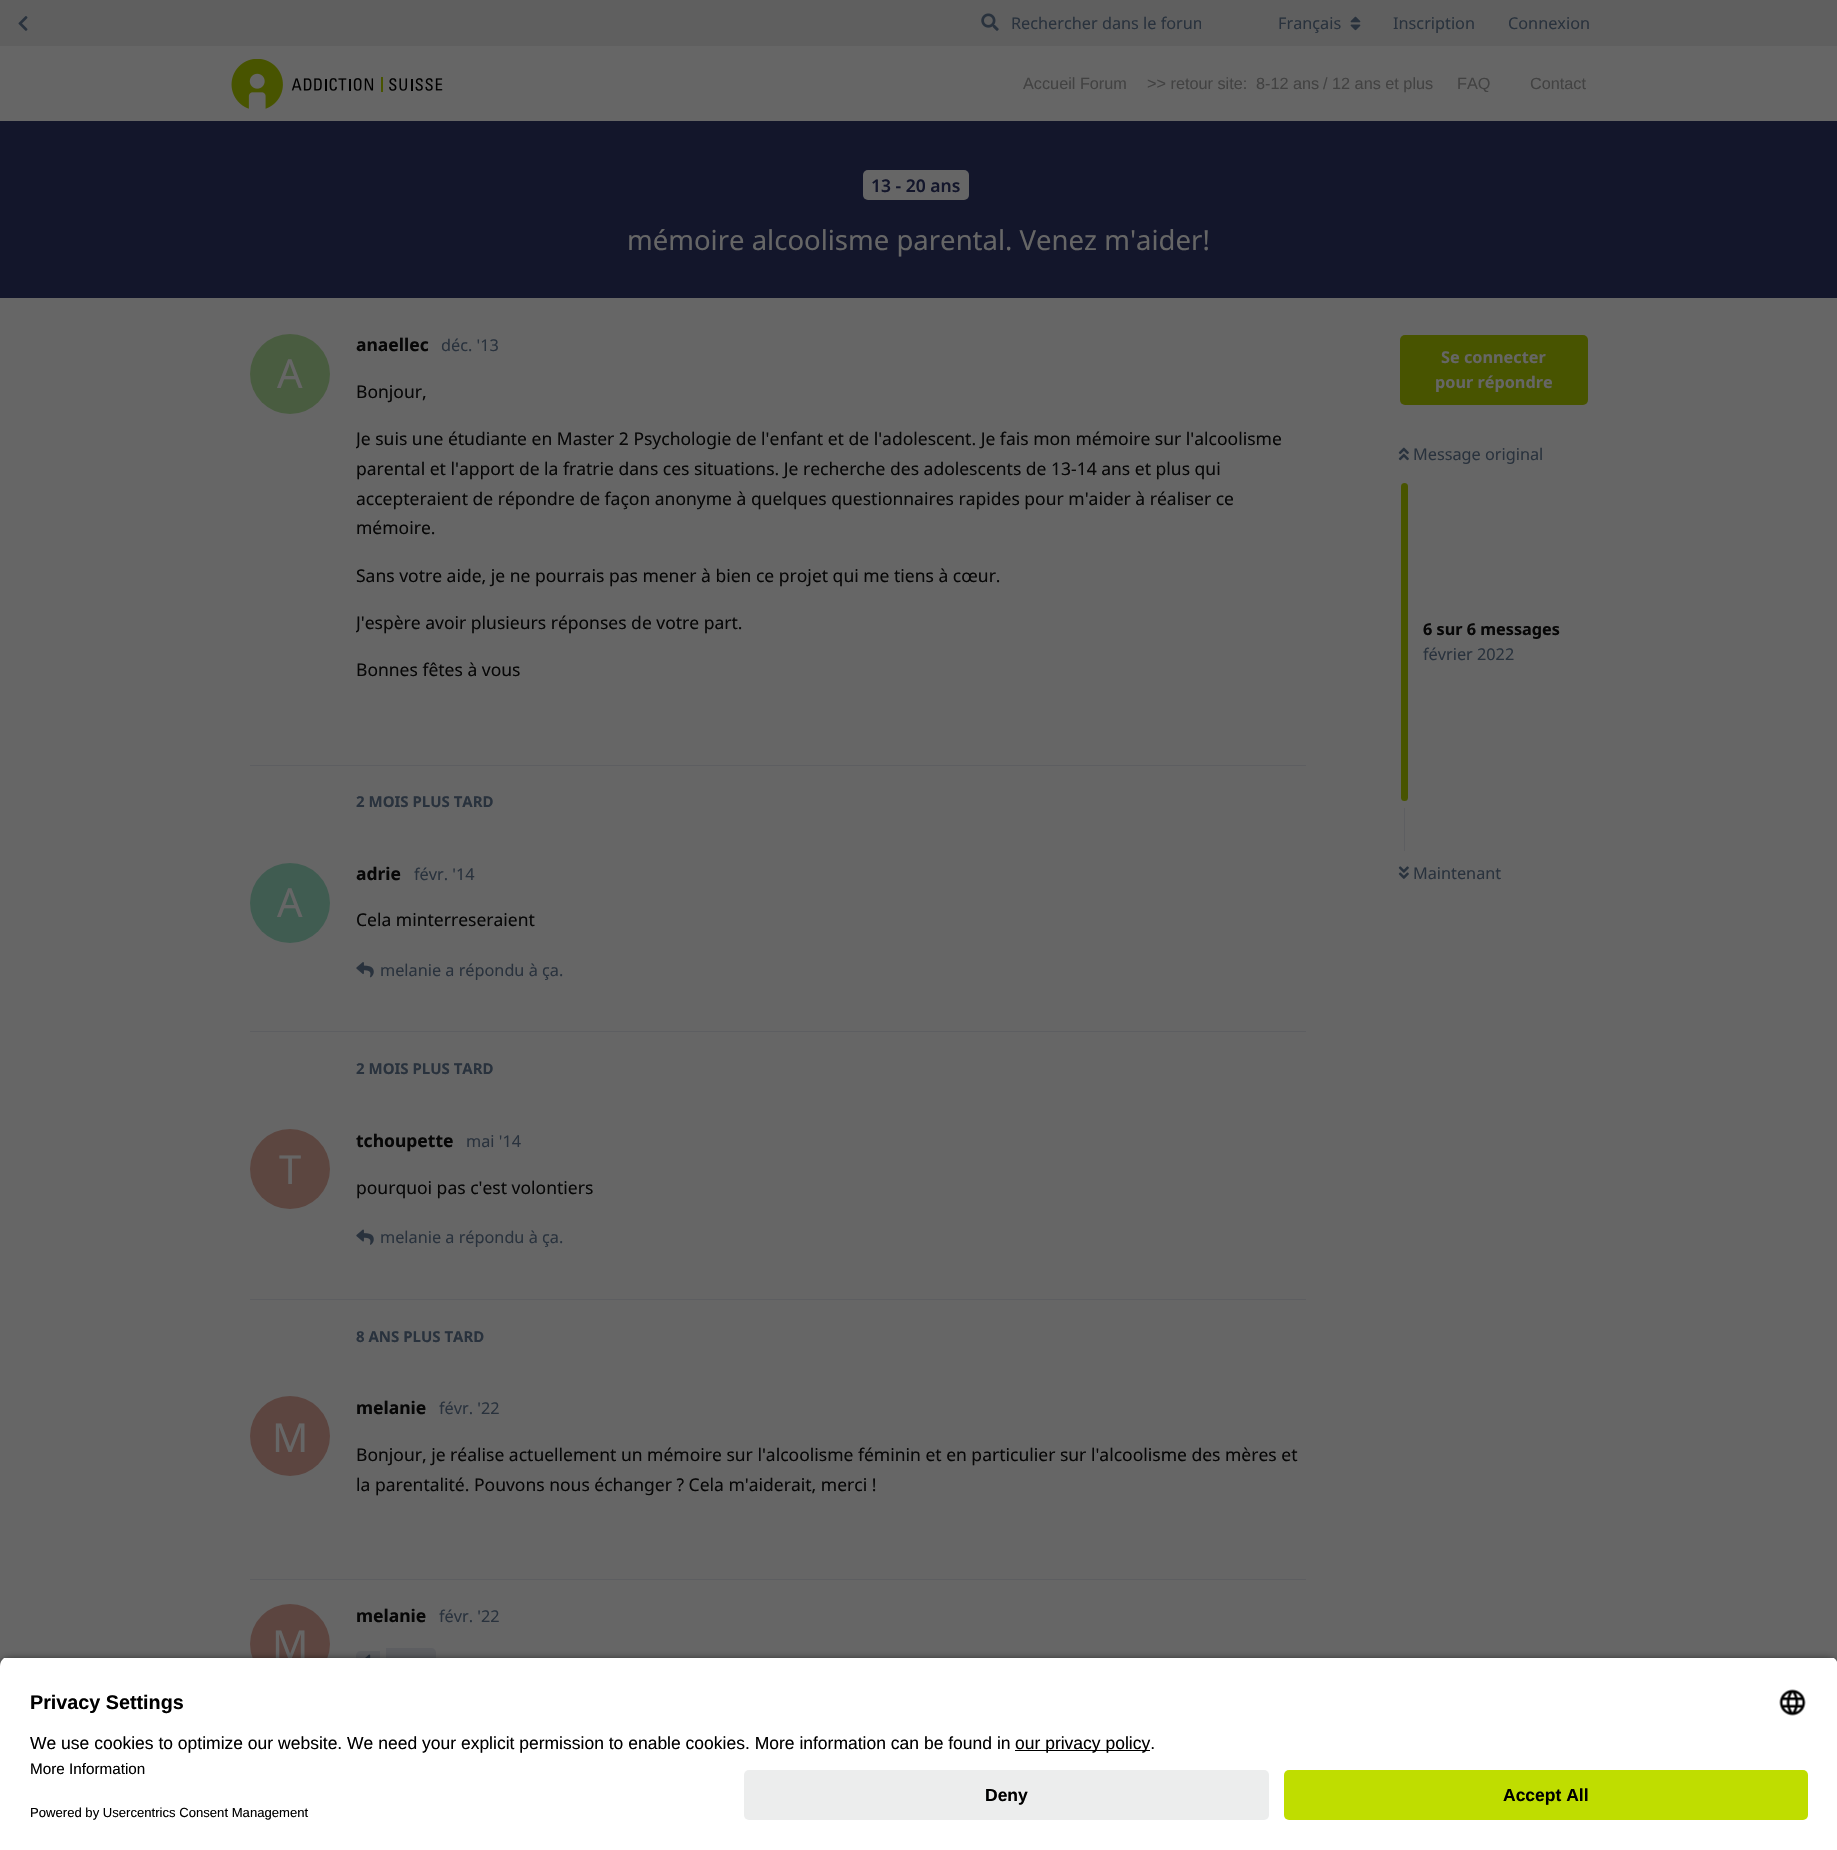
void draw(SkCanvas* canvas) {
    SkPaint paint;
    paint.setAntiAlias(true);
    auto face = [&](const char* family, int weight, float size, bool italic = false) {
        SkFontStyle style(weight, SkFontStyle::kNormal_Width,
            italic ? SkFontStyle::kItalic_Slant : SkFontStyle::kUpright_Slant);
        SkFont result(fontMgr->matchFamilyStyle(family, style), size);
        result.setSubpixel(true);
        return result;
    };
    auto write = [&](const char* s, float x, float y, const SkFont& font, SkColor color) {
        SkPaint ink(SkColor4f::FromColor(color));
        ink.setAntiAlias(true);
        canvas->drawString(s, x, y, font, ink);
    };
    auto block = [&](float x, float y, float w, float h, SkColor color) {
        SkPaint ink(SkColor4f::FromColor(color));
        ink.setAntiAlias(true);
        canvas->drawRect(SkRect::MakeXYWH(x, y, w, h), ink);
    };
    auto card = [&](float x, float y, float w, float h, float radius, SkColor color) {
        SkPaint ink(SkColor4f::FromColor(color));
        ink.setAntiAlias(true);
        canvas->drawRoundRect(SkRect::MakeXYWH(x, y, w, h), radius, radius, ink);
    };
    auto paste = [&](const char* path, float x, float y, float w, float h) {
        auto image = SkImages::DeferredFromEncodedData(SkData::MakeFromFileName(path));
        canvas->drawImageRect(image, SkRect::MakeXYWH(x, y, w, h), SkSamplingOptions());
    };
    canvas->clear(SkColorSetRGB(102, 102, 102));
    block(0, 0, 1837, 46, SkColorSetRGB(95, 95, 95));
    paste("pic1.png", 18, 16, 10, 15);
    paste("pic2.png", 981, 13, 18, 18);
    canvas->save();
    canvas->clipRect(SkRect::MakeXYWH(1010, 11, 191, 23));
    auto kFont1 = face("Noto Sans", 400, 16.25f);
    write("Rechercher dans le forum", 1011, 29, kFont1, SkColorSetRGB(41, 50, 61));
    canvas->restore();
    write("Français", 1278, 29, kFont1, SkColorSetRGB(41, 50, 61));
    paste("pic3.png", 1350, 16, 11, 15);
    write("Inscription", 1393, 29, kFont1, SkColorSetRGB(41, 50, 61));
    write("Connexion", 1508, 29, kFont1, SkColorSetRGB(41, 50, 61));
    paste("pic4.png", 231, 59, 212, 50);
    auto kFont2 = face("Liberation Sans", 400, 16.25f);
    write("Accueil Forum", 1023, 89, kFont2, SkColorSetRGB(66, 66, 66));
    write(">> retour site:", 1147, 89, kFont2, SkColorSetRGB(66, 66, 66));
    write("8-12 ans", 1256, 89, kFont2, SkColorSetRGB(66, 66, 66));
    write("/", 1323, 89, kFont2, SkColorSetRGB(66, 66, 66));
    write("12 ans et plus", 1332, 89, kFont2, SkColorSetRGB(66, 66, 66));
    write("FAQ", 1457, 89, kFont2, SkColorSetRGB(66, 66, 66));
    write("Contact", 1530, 89, kFont2, SkColorSetRGB(66, 66, 66));
    block(0, 121, 1837, 177, SkColorSetRGB(19, 22, 43));
    card(863, 170, 106, 30, 5, SkColorSetRGB(102, 102, 102));
    auto kFont3 = face("Noto Sans", 600, 17.5f);
    write("13 - 20 ans", 871, 192, kFont3, SkColorSetRGB(19, 22, 43));
    auto kFont4 = face("Noto Sans", 400, 27.5f);
    write("mémoire alcoolisme parental. Venez m'aider!", 627, 250, kFont4, SkColorSetRGB(102, 102, 102));
    block(250, 765, 1056, 1, SkColorSetRGB(93, 94, 97));
    auto kFont5 = face("Noto Sans", 700, 17.5f);
    write("anaellec", 356, 351, kFont5, SkColorSetRGB(7, 7, 7));
    paint.setColor(SkColorSetRGB(73, 92, 64));
    canvas->drawCircle(290, 374, 40, paint);
    auto kFont6 = face("Noto Sans", 400, 40);
    write("A", 277, 388, kFont6, SkColorSetRGB(102, 102, 102));
    write("déc. '13", 441, 351, kFont1, SkColorSetRGB(41, 50, 61));
    auto kFont7 = face("Noto Sans", 400, 17.5f);
    write("Bonjour,", 356, 398, kFont7, SkColorSetRGB(7, 7, 7));
    canvas->save();
    canvas->clipRect(SkRect::MakeXYWH(356, 376, 950, 327));
    write("Je suis une étudiante en Master 2 Psychologie de l'enfant et de l'adolescent. Je fais mon mémoire sur l'alcoolisme", 356, 445, kFont7, SkColorSetRGB(7, 7, 7));
    canvas->restore();
    write("parental et l'apport de la fratrie dans ces situations. Je recherche des adolescents de 13-14 ans et plus qui", 356, 475, kFont7, SkColorSetRGB(7, 7, 7));
    write("accepteraient de répondre de façon anonyme à quelques questionnaires rapides pour m'aider à réaliser ce", 356, 505, kFont7, SkColorSetRGB(7, 7, 7));
    write("mémoire.", 356, 534, kFont7, SkColorSetRGB(7, 7, 7));
    write("Sans votre aide, je ne pourrais pas mener à bien ce projet qui me tiens à cœur.", 356, 582, kFont7, SkColorSetRGB(7, 7, 7));
    canvas->save();
    canvas->clipRect(SkRect::MakeXYWH(356, 376, 950, 327));
    write("J'espère avoir plusieurs réponses de votre part.", 356, 629, kFont7, SkColorSetRGB(7, 7, 7));
    canvas->restore();
    write("Bonnes fêtes à vous", 356, 676, kFont7, SkColorSetRGB(7, 7, 7));
    block(250, 1031, 1056, 1, SkColorSetRGB(93, 94, 97));
    auto kFont8 = face("Noto Sans", 700, 15);
    write("2 MOIS PLUS TARD", 356, 807, kFont8, SkColorSetRGB(41, 50, 61));
    write("adrie", 356, 880, kFont5, SkColorSetRGB(7, 7, 7));
    paint.setColor(SkColorSetRGB(64, 92, 81));
    canvas->drawCircle(290, 903, 40, paint);
    write("A", 277, 917, kFont6, SkColorSetRGB(102, 102, 102));
    write("févr. '14", 414, 880, kFont1, SkColorSetRGB(41, 50, 61));
    write("Cela minterreseraient", 356, 926, kFont7, SkColorSetRGB(7, 7, 7));
    paste("pic5.png", 356, 962, 18, 16);
    write("melanie a répondu à ça.", 380, 976, kFont1, SkColorSetRGB(41, 50, 61));
    block(250, 1299, 1056, 1, SkColorSetRGB(93, 94, 97));
    write("2 MOIS PLUS TARD", 356, 1074, kFont8, SkColorSetRGB(41, 50, 61));
    write("tchoupette", 356, 1147, kFont5, SkColorSetRGB(7, 7, 7));
    paint.setColor(SkColorSetRGB(92, 70, 64));
    canvas->drawCircle(290, 1169, 40, paint);
    write("T", 279, 1184, kFont6, SkColorSetRGB(102, 102, 102));
    write("mai '14", 466, 1147, kFont1, SkColorSetRGB(41, 50, 61));
    write("pourquoi pas c'est volontiers", 356, 1194, kFont7, SkColorSetRGB(7, 7, 7));
    paste("pic6.png", 356, 1229, 18, 16);
    write("melanie a répondu à ça.", 380, 1243, kFont1, SkColorSetRGB(41, 50, 61));
    block(250, 1579, 1056, 1, SkColorSetRGB(93, 94, 97));
    write("8 ANS PLUS TARD", 356, 1342, kFont8, SkColorSetRGB(41, 50, 61));
    write("melanie", 356, 1414, kFont5, SkColorSetRGB(7, 7, 7));
    paint.setColor(SkColorSetRGB(92, 69, 64));
    canvas->drawCircle(290, 1436, 40, paint);
    write("M", 272, 1452, kFont6, SkColorSetRGB(102, 102, 102));
    write("févr. '22", 439, 1414, kFont1, SkColorSetRGB(41, 50, 61));
    write("Bonjour, je réalise actuellement un mémoire sur l'alcoolisme féminin et en particulier sur l'alcoolisme des mères et", 356, 1461, kFont7, SkColorSetRGB(7, 7, 7));
    write("la parentalité. Pouvons nous échanger ? Cela m'aiderait, merci !", 356, 1491, kFont7, SkColorSetRGB(7, 7, 7));
    write("melanie", 356, 1622, kFont5, SkColorSetRGB(7, 7, 7));
    canvas->drawCircle(290, 1644, 40, paint);
    write("M", 272, 1659, kFont6, SkColorSetRGB(102, 102, 102));
    write("févr. '22", 439, 1622, kFont1, SkColorSetRGB(41, 50, 61));
    paint.setColor(SkColorSetRGB(93, 94, 97));
    canvas->drawPath(SkPathBuilder().moveTo(361, 1651).lineTo(380, 1651).lineTo(380, 1674).lineTo(361, 1674).cubicTo(358, 1674, 356, 1672, 356, 1669).lineTo(356, 1656).cubicTo(356, 1653, 358, 1651, 361, 1651).close().detach(), paint);
    canvas->drawPath(SkPathBuilder().moveTo(386, 1648).lineTo(431, 1648).cubicTo(434, 1648, 436, 1650, 436, 1653).lineTo(436, 1671).cubicTo(436, 1674, 434, 1676, 431, 1676).lineTo(386, 1676).close().detach(), paint);
    paste("pic7.png", 365, 1654, 6, 4);
    card(1400, 335, 188, 70, 5, SkColorSetRGB(72, 84, 0));
    auto kFont9 = face("Noto Sans", 700, 16.25f);
    write("Se connecter", 1441, 363, kFont9, SkColorSetRGB(102, 102, 102));
    write("pour répondre", 1435, 388, kFont9, SkColorSetRGB(102, 102, 102));
    paste("pic8.png", 1398, 447, 11, 14);
    write("Message original", 1413, 460, kFont1, SkColorSetRGB(41, 50, 61));
    card(1401, 483, 7, 318, 3.5f, SkColorSetRGB(72, 84, 0));
    write("6 sur 6 messages", 1423, 635, kFont9, SkColorSetRGB(7, 7, 7));
    write("février 2022", 1423, 660, kFont1, SkColorSetRGB(41, 50, 61));
    block(1404, 808, 1, 43, SkColorSetRGB(93, 94, 97));
    paste("pic9.png", 1398, 866, 11, 13);
    write("Maintenant", 1413, 879, kFont1, SkColorSetRGB(41, 50, 61));
    paint.setColor(SkColorSetARGB(204, 0, 0, 0));
    paint.setMaskFilter(SkMaskFilter::MakeBlur(kNormal_SkBlurStyle, 4.5f));
    canvas->drawRoundRect(SkRect::MakeXYWH(0, 1660, 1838, 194), 10, 10, paint);
    paint.setMaskFilter(nullptr);
    canvas->save();
    canvas->clipPath(SkPathBuilder().moveTo(10, 1656).lineTo(1828, 1656).cubicTo(1833.5f, 1656, 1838, 1660.5f, 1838, 1666).lineTo(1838, 1760).lineTo(0, 1760).lineTo(0, 1666).cubicTo(0, 1660.5f, 4.5f, 1656, 10, 1656).close().detach(), true);
    block(0, 1658, 1837, 102, SK_ColorWHITE);
    canvas->restore();
    auto kFont10 = face("Liberation Sans", 700, 19.75f);
    write("Privacy Settings", 30, 1709, kFont10, SK_ColorBLACK);
    paste("pic10.png", 1779, 1689, 27, 27);
    auto kFont11 = face("Liberation Sans", 400, 17.5f);
    write("We use cookies to optimize our website. We need your explicit permission to enable cookies. More information can be found in", 30, 1749, kFont11, SK_ColorBLACK);
    block(1015, 1750, 135, 1, SK_ColorBLACK);
    write("our privacy policy.", 1015, 1749, kFont11, SK_ColorBLACK);
    block(0, 1760, 1837, 90, SK_ColorWHITE);
    auto kFont12 = face("Liberation Sans", 400, 15.25f);
    write("More Information", 30, 1774, kFont12, SK_ColorBLACK);
    auto kFont13 = face("Liberation Sans", 400, 13.1f);
    write("Powered by Usercentrics Consent Management", 30, 1817, kFont13, SK_ColorBLACK);
    card(744, 1770, 525, 50, 5, SkColorSetRGB(236, 237, 237));
    auto kFont14 = face("Liberation Sans", 700, 17.5f);
    write("Deny", 985, 1801, kFont14, SK_ColorBLACK);
    card(1284, 1770, 524, 50, 5, SkColorSetRGB(191, 221, 0));
    write("Accept All", 1503, 1801, kFont14, SK_ColorBLACK);
}
